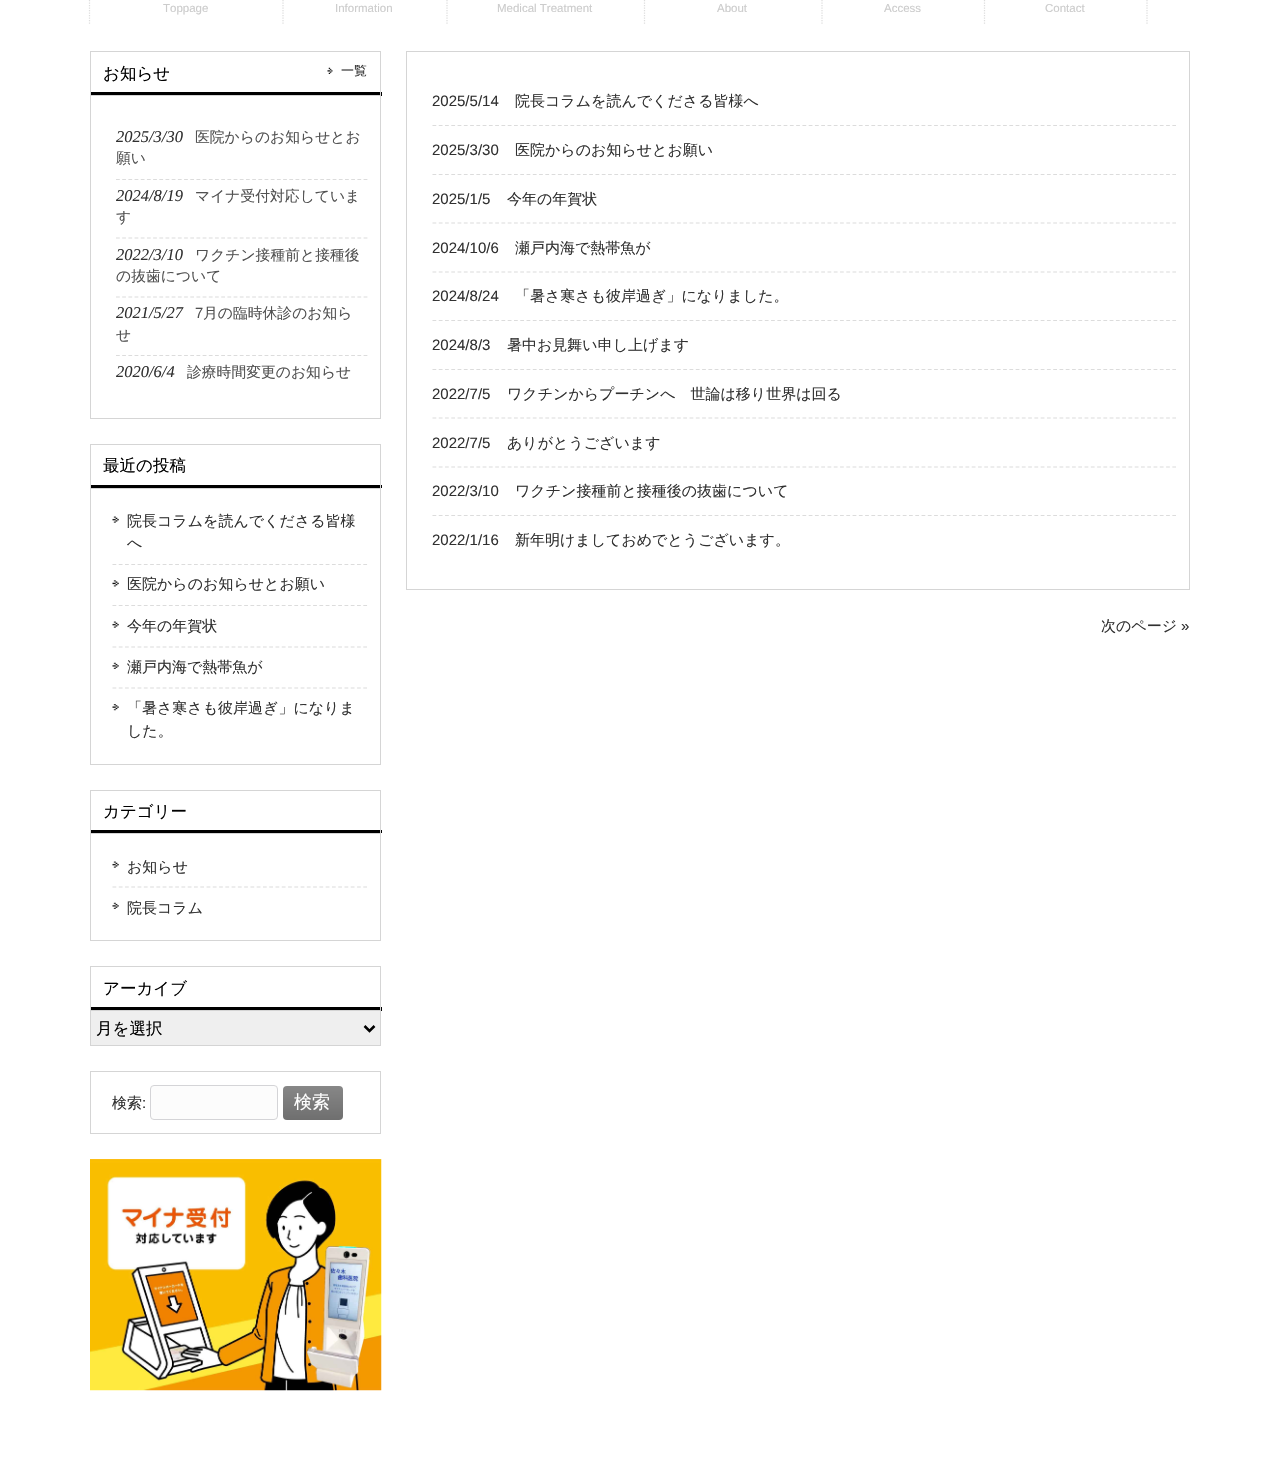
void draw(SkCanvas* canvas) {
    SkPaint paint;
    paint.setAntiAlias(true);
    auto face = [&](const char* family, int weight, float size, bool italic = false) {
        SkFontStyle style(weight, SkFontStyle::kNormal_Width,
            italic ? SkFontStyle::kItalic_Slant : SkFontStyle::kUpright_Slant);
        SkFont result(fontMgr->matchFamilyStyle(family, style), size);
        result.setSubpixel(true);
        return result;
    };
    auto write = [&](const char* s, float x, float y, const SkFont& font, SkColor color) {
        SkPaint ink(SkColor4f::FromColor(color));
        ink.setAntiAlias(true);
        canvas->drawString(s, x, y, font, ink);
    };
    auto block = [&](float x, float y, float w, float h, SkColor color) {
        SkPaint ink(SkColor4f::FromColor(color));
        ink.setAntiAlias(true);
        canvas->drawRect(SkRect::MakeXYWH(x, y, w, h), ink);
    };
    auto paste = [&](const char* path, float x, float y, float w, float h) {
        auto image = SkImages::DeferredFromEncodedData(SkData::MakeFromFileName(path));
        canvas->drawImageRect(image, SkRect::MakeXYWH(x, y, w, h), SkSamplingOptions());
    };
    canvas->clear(SK_ColorWHITE);
    paint.setStyle(SkPaint::kStroke_Style);
    paint.setStrokeWidth(1.2f);
    paint.setColor(SkColorSetRGB(221, 221, 221));
    paint.setPathEffect(SkDashPathEffect::Make({{1.25f, 1.25f}}, 0));
    canvas->drawPath(SkPathBuilder().moveTo(89.5f, -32.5f).lineTo(89.5f, 24).detach(), paint);
    paint.setPathEffect(nullptr);
    paint.setPathEffect(SkDashPathEffect::Make({{1.25f, 1.25f}}, 0));
    canvas->drawPath(SkPathBuilder().moveTo(283, -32.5f).lineTo(283, 24).detach(), paint);
    paint.setPathEffect(nullptr);
    auto kFont1 = face("Liberation Sans", 400, 11.5f);
    write("Toppage", 163, 12, kFont1, SkColorSetRGB(204, 204, 204));
    paint.setPathEffect(SkDashPathEffect::Make({{1.25f, 1.25f}}, 0));
    canvas->drawPath(SkPathBuilder().moveTo(447, -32.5f).lineTo(447, 24).detach(), paint);
    paint.setPathEffect(nullptr);
    write("Information", 335, 12, kFont1, SkColorSetRGB(204, 204, 204));
    paint.setPathEffect(SkDashPathEffect::Make({{1.25f, 1.25f}}, 0));
    canvas->drawPath(SkPathBuilder().moveTo(644.5f, -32.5f).lineTo(644.5f, 24).detach(), paint);
    paint.setPathEffect(nullptr);
    write("Medical Treatment", 497, 12, kFont1, SkColorSetRGB(204, 204, 204));
    paint.setPathEffect(SkDashPathEffect::Make({{1.25f, 1.25f}}, 0));
    canvas->drawPath(SkPathBuilder().moveTo(822, -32.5f).lineTo(822, 24).detach(), paint);
    paint.setPathEffect(nullptr);
    write("About", 717, 12, kFont1, SkColorSetRGB(204, 204, 204));
    paint.setPathEffect(SkDashPathEffect::Make({{1.25f, 1.25f}}, 0));
    canvas->drawPath(SkPathBuilder().moveTo(984.5f, -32.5f).lineTo(984.5f, 24).detach(), paint);
    paint.setPathEffect(nullptr);
    write("Access", 884, 12, kFont1, SkColorSetRGB(204, 204, 204));
    paint.setPathEffect(SkDashPathEffect::Make({{1.25f, 1.25f}}, 0));
    canvas->drawPath(SkPathBuilder().moveTo(1147, -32.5f).lineTo(1147, 24).detach(), paint);
    paint.setPathEffect(nullptr);
    write("Contact", 1045, 12, kFont1, SkColorSetRGB(204, 204, 204));
    block(90, 92, 292, 4, SK_ColorBLACK);
    block(90, 51, 291, 1, SkColorSetRGB(213, 213, 213));
    block(380, 51, 1, 44, SkColorSetRGB(213, 213, 213));
    block(90, 51, 1, 44, SkColorSetRGB(213, 213, 213));
    auto kFont2 = face("WenQuanYi Zen Hei", 500, 16.5f);
    write("お知らせ", 103, 79, kFont2, SK_ColorBLACK);
    paste("pic1.png", 327, 67, 6, 7);
    auto kFont3 = face("WenQuanYi Zen Hei", 500, 13);
    write("一覧", 341, 75, kFont3, SkColorSetRGB(49, 49, 49));
    paint.setStrokeWidth(1);
    paint.setColor(SkColorSetRGB(213, 213, 213));
    canvas->drawRect(SkRect::MakeXYWH(90.5f, 95.5f, 290, 323), paint);
    paint.setStrokeWidth(1.2f);
    paint.setColor(SkColorSetRGB(220, 220, 220));
    paint.setPathEffect(SkDashPathEffect::Make({{3.75f, 2.44f}}, 0));
    canvas->drawPath(SkPathBuilder().moveTo(116, 179.5f).lineTo(367.5f, 179.5f).detach(), paint);
    paint.setPathEffect(nullptr);
    auto kFont4 = face("Liberation Serif", 400, 16.5f, true);
    write("2025/3/30", 116, 142, kFont4, SkColorSetRGB(49, 49, 49));
    auto kFont5 = face("WenQuanYi Zen Hei", 500, 14.8f);
    write("医院からのお知らせとお", 195, 142, kFont5, SkColorSetRGB(81, 81, 81));
    write("願い", 116, 163, kFont5, SkColorSetRGB(81, 81, 81));
    paint.setPathEffect(SkDashPathEffect::Make({{3.75f, 2.44f}}, 0));
    canvas->drawPath(SkPathBuilder().moveTo(116, 238).lineTo(367.5f, 238).detach(), paint);
    paint.setPathEffect(nullptr);
    write("2024/8/19", 116, 201, kFont4, SkColorSetRGB(49, 49, 49));
    write("マイナ受付対応していま", 195, 201, kFont5, SkColorSetRGB(81, 81, 81));
    write("す", 116, 222, kFont5, SkColorSetRGB(81, 81, 81));
    paint.setPathEffect(SkDashPathEffect::Make({{3.75f, 2.44f}}, 0));
    canvas->drawPath(SkPathBuilder().moveTo(116, 297).lineTo(367.5f, 297).detach(), paint);
    paint.setPathEffect(nullptr);
    write("2022/3/10", 116, 260, kFont4, SkColorSetRGB(49, 49, 49));
    write("ワクチン接種前と接種後", 195, 260, kFont5, SkColorSetRGB(81, 81, 81));
    write("の抜歯について", 116, 281, kFont5, SkColorSetRGB(81, 81, 81));
    paint.setPathEffect(SkDashPathEffect::Make({{3.75f, 2.44f}}, 0));
    canvas->drawPath(SkPathBuilder().moveTo(116, 355.5f).lineTo(367.5f, 355.5f).detach(), paint);
    paint.setPathEffect(nullptr);
    write("2021/5/27", 116, 318, kFont4, SkColorSetRGB(49, 49, 49));
    auto kFont6 = face("Liberation Sans", 400, 14.8f);
    write("7", 195, 318, kFont6, SkColorSetRGB(81, 81, 81));
    write("月の臨時休診のお知ら", 203, 318, kFont5, SkColorSetRGB(81, 81, 81));
    write("せ", 116, 340, kFont5, SkColorSetRGB(81, 81, 81));
    write("2020/6/4", 116, 377, kFont4, SkColorSetRGB(49, 49, 49));
    write("診療時間変更のお知らせ", 187, 377, kFont5, SkColorSetRGB(81, 81, 81));
    block(90, 485, 292, 3, SK_ColorBLACK);
    block(90, 444, 291, 1, SkColorSetRGB(213, 213, 213));
    block(380, 444, 1, 44, SkColorSetRGB(213, 213, 213));
    block(90, 444, 1, 44, SkColorSetRGB(213, 213, 213));
    write("最近の投稿", 103, 471, kFont2, SK_ColorBLACK);
    paint.setStrokeWidth(1);
    paint.setColor(SkColorSetRGB(213, 213, 213));
    canvas->drawRect(SkRect::MakeXYWH(90.5f, 488.5f, 290, 276), paint);
    paste("pic2.png", 112, 516, 7, 7);
    paint.setStrokeWidth(1.2f);
    paint.setColor(SkColorSetRGB(220, 220, 220));
    paint.setPathEffect(SkDashPathEffect::Make({{3.75f, 2.52f}}, 0));
    canvas->drawPath(SkPathBuilder().moveTo(112.5f, 564.5f).lineTo(367.5f, 564.5f).detach(), paint);
    paint.setPathEffect(nullptr);
    auto kFont7 = face("WenQuanYi Zen Hei", 500, 15);
    write("院長コラムを読んでくださる皆様", 127, 526, kFont7, SkColorSetRGB(49, 49, 49));
    write("へ", 127, 548, kFont7, SkColorSetRGB(49, 49, 49));
    paste("pic3.png", 112, 580, 7, 7);
    paint.setPathEffect(SkDashPathEffect::Make({{3.75f, 2.52f}}, 0));
    canvas->drawPath(SkPathBuilder().moveTo(112.5f, 605.5f).lineTo(367.5f, 605.5f).detach(), paint);
    paint.setPathEffect(nullptr);
    write("医院からのお知らせとお願い", 127, 589, kFont7, SkColorSetRGB(49, 49, 49));
    paste("pic2.png", 112, 621, 7, 7);
    paint.setPathEffect(SkDashPathEffect::Make({{3.75f, 2.52f}}, 0));
    canvas->drawPath(SkPathBuilder().moveTo(112.5f, 647).lineTo(367.5f, 647).detach(), paint);
    paint.setPathEffect(nullptr);
    write("今年の年賀状", 127, 631, kFont7, SkColorSetRGB(49, 49, 49));
    paste("pic4.png", 112, 662, 7, 7);
    paint.setPathEffect(SkDashPathEffect::Make({{3.75f, 2.52f}}, 0));
    canvas->drawPath(SkPathBuilder().moveTo(112.5f, 688).lineTo(367.5f, 688).detach(), paint);
    paint.setPathEffect(nullptr);
    write("瀬戸内海で熱帯魚が", 127, 672, kFont7, SkColorSetRGB(49, 49, 49));
    paste("pic5.png", 112, 704, 7, 7);
    write("「暑さ寒さも彼岸過ぎ」になりま", 127, 713, kFont7, SkColorSetRGB(49, 49, 49));
    write("した。", 127, 736, kFont7, SkColorSetRGB(49, 49, 49));
    block(90, 830, 292, 3, SK_ColorBLACK);
    block(90, 790, 291, 1, SkColorSetRGB(213, 213, 213));
    block(380, 790, 1, 43, SkColorSetRGB(213, 213, 213));
    block(90, 790, 1, 43, SkColorSetRGB(213, 213, 213));
    write("カテゴリー", 103, 817, kFont2, SK_ColorBLACK);
    paint.setStrokeWidth(1);
    paint.setColor(SkColorSetRGB(213, 213, 213));
    canvas->drawRect(SkRect::MakeXYWH(90.5f, 833.5f, 290, 107), paint);
    paste("pic2.png", 112, 861, 7, 7);
    paint.setStrokeWidth(1.2f);
    paint.setColor(SkColorSetRGB(220, 220, 220));
    paint.setPathEffect(SkDashPathEffect::Make({{3.75f, 2.52f}}, 0));
    canvas->drawPath(SkPathBuilder().moveTo(112.5f, 887).lineTo(367.5f, 887).detach(), paint);
    paint.setPathEffect(nullptr);
    write("お知らせ", 127, 872, kFont7, SkColorSetRGB(49, 49, 49));
    paste("pic4.png", 112, 902, 7, 7);
    write("院長コラム", 127, 913, kFont7, SkColorSetRGB(49, 49, 49));
    block(90, 1007, 292, 4, SK_ColorBLACK);
    block(90, 966, 291, 1, SkColorSetRGB(213, 213, 213));
    block(380, 966, 1, 44, SkColorSetRGB(213, 213, 213));
    block(90, 966, 1, 44, SkColorSetRGB(213, 213, 213));
    write("アーカイブ", 103, 994, kFont2, SK_ColorBLACK);
    paint.setStyle(SkPaint::kFill_Style);
    paint.setColor(SkColorSetRGB(239, 239, 239));
    canvas->drawRect(SkRect::MakeXYWH(90.5f, 1010.5f, 290, 35), paint);
    paint.setStyle(SkPaint::kStroke_Style);
    paint.setStrokeWidth(1);
    paint.setColor(SkColorSetRGB(212, 212, 212));
    canvas->drawRect(SkRect::MakeXYWH(90.5f, 1010.5f, 290, 35), paint);
    paint.setStrokeWidth(2.5f);
    paint.setColor(SK_ColorBLACK);
    canvas->drawPath(SkPathBuilder().moveTo(364.5f, 1026).lineTo(369.5f, 1031).lineTo(374.5f, 1026).detach(), paint);
    write("月を選択", 96, 1034, kFont2, SK_ColorBLACK);
    paint.setStrokeWidth(1);
    paint.setColor(SkColorSetRGB(213, 213, 213));
    canvas->drawRect(SkRect::MakeXYWH(90.5f, 1071.5f, 290, 62), paint);
    write("検索", 112, 1108, kFont7, SkColorSetRGB(49, 49, 49));
    auto kFont8 = face("Liberation Sans", 400, 15);
    write(":", 142, 1108, kFont8, SkColorSetRGB(49, 49, 49));
    paint.setStyle(SkPaint::kFill_Style);
    paint.setColor(SkColorSetRGB(252, 252, 252));
    canvas->drawRoundRect(SkRect::MakeXYWH(150.5f, 1085.5f, 127, 34), 3.5f, 3.5f, paint);
    paint.setStyle(SkPaint::kStroke_Style);
    paint.setColor(SkColorSetRGB(212, 212, 215));
    canvas->drawRoundRect(SkRect::MakeXYWH(150.5f, 1085.5f, 127, 34), 3.5f, 3.5f, paint);
    paint.setStyle(SkPaint::kFill_Style);
    {
        const SkColor colors[] = {SkColorSetRGB(135, 135, 135), SkColorSetRGB(111, 111, 111)};
        const float stops[] = {0, 1};
        const SkPoint ends[] = {{313, 1086}, {313, 1120}};
        paint.setShader(SkGradientShader::MakeLinear(ends, colors, stops, 2, SkTileMode::kClamp));
        paint.setAlpha(255);
    }
    canvas->drawRoundRect(SkRect::MakeXYWH(283, 1086, 60, 34), 4, 4, paint);
    auto kFont9 = face("WenQuanYi Zen Hei", 500, 18);
    write("検索", 294, 1108, kFont9, SK_ColorWHITE);
    paste("pic6.png", 90, 1159, 292, 232);
    paint.setStyle(SkPaint::kStroke_Style);
    paint.setShader(nullptr);
    paint.setColor(SkColorSetRGB(213, 213, 213));
    canvas->drawRect(SkRect::MakeXYWH(406.5f, 51.5f, 783, 538), paint);
    paint.setStrokeWidth(1.2f);
    paint.setColor(SkColorSetRGB(220, 220, 220));
    paint.setPathEffect(SkDashPathEffect::Make({{3.75f, 2.52f}}, 0));
    canvas->drawPath(SkPathBuilder().moveTo(432.5f, 125.5f).lineTo(1176, 125.5f).detach(), paint);
    paint.setPathEffect(nullptr);
    write("2025/5/14", 432, 106, kFont8, SkColorSetRGB(49, 49, 49));
    write("院長コラムを読んでくださる皆様へ", 515, 106, kFont7, SkColorSetRGB(49, 49, 49));
    paint.setPathEffect(SkDashPathEffect::Make({{3.75f, 2.52f}}, 0));
    canvas->drawPath(SkPathBuilder().moveTo(432.5f, 174.5f).lineTo(1176, 174.5f).detach(), paint);
    paint.setPathEffect(nullptr);
    write("2025/3/30", 432, 155, kFont8, SkColorSetRGB(49, 49, 49));
    write("医院からのお知らせとお願い", 515, 155, kFont7, SkColorSetRGB(49, 49, 49));
    paint.setPathEffect(SkDashPathEffect::Make({{3.75f, 2.52f}}, 0));
    canvas->drawPath(SkPathBuilder().moveTo(432.5f, 223).lineTo(1176, 223).detach(), paint);
    paint.setPathEffect(nullptr);
    write("2025/1/5", 432, 204, kFont8, SkColorSetRGB(49, 49, 49));
    write("今年の年賀状", 507, 204, kFont7, SkColorSetRGB(49, 49, 49));
    paint.setPathEffect(SkDashPathEffect::Make({{3.75f, 2.52f}}, 0));
    canvas->drawPath(SkPathBuilder().moveTo(432.5f, 272).lineTo(1176, 272).detach(), paint);
    paint.setPathEffect(nullptr);
    write("2024/10/6", 432, 253, kFont8, SkColorSetRGB(49, 49, 49));
    write("瀬戸内海で熱帯魚が", 515, 253, kFont7, SkColorSetRGB(49, 49, 49));
    paint.setPathEffect(SkDashPathEffect::Make({{3.75f, 2.52f}}, 0));
    canvas->drawPath(SkPathBuilder().moveTo(432.5f, 320.5f).lineTo(1176, 320.5f).detach(), paint);
    paint.setPathEffect(nullptr);
    write("2024/8/24", 432, 301, kFont8, SkColorSetRGB(49, 49, 49));
    write("「暑さ寒さも彼岸過ぎ」になりました。", 515, 301, kFont7, SkColorSetRGB(49, 49, 49));
    paint.setPathEffect(SkDashPathEffect::Make({{3.75f, 2.52f}}, 0));
    canvas->drawPath(SkPathBuilder().moveTo(432.5f, 369.5f).lineTo(1176, 369.5f).detach(), paint);
    paint.setPathEffect(nullptr);
    write("2024/8/3", 432, 350, kFont8, SkColorSetRGB(49, 49, 49));
    write("暑中お見舞い申し上げます", 507, 350, kFont7, SkColorSetRGB(49, 49, 49));
    paint.setPathEffect(SkDashPathEffect::Make({{3.75f, 2.52f}}, 0));
    canvas->drawPath(SkPathBuilder().moveTo(432.5f, 418).lineTo(1176, 418).detach(), paint);
    paint.setPathEffect(nullptr);
    write("2022/7/5", 432, 399, kFont8, SkColorSetRGB(49, 49, 49));
    write("ワクチンからプーチンへ　世論は移り世界は回る", 507, 399, kFont7, SkColorSetRGB(49, 49, 49));
    paint.setPathEffect(SkDashPathEffect::Make({{3.75f, 2.52f}}, 0));
    canvas->drawPath(SkPathBuilder().moveTo(432.5f, 467).lineTo(1176, 467).detach(), paint);
    paint.setPathEffect(nullptr);
    write("2022/7/5", 432, 448, kFont8, SkColorSetRGB(49, 49, 49));
    write("ありがとうございます", 507, 448, kFont7, SkColorSetRGB(49, 49, 49));
    paint.setPathEffect(SkDashPathEffect::Make({{3.75f, 2.52f}}, 0));
    canvas->drawPath(SkPathBuilder().moveTo(432.5f, 515.5f).lineTo(1176, 515.5f).detach(), paint);
    paint.setPathEffect(nullptr);
    write("2022/3/10", 432, 496, kFont8, SkColorSetRGB(49, 49, 49));
    write("ワクチン接種前と接種後の抜歯について", 515, 496, kFont7, SkColorSetRGB(49, 49, 49));
    write("2022/1/16", 432, 545, kFont8, SkColorSetRGB(49, 49, 49));
    write("新年明けましておめでとうございます。", 515, 545, kFont7, SkColorSetRGB(49, 49, 49));
    write("次のページ", 1101, 631, kFont7, SkColorSetRGB(49, 49, 49));
    write("»", 1181, 631, kFont8, SkColorSetRGB(49, 49, 49));
}
